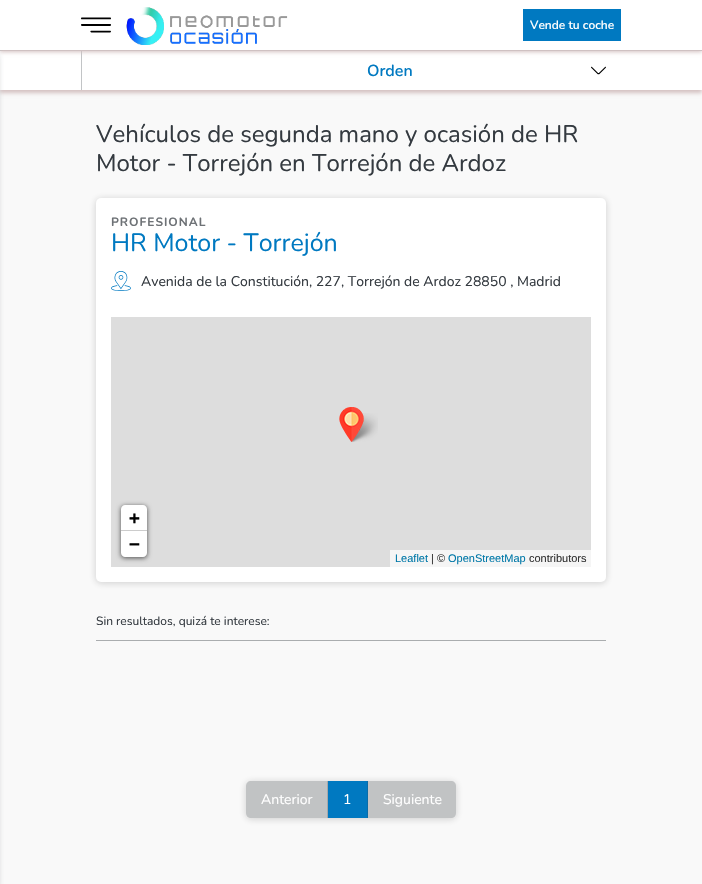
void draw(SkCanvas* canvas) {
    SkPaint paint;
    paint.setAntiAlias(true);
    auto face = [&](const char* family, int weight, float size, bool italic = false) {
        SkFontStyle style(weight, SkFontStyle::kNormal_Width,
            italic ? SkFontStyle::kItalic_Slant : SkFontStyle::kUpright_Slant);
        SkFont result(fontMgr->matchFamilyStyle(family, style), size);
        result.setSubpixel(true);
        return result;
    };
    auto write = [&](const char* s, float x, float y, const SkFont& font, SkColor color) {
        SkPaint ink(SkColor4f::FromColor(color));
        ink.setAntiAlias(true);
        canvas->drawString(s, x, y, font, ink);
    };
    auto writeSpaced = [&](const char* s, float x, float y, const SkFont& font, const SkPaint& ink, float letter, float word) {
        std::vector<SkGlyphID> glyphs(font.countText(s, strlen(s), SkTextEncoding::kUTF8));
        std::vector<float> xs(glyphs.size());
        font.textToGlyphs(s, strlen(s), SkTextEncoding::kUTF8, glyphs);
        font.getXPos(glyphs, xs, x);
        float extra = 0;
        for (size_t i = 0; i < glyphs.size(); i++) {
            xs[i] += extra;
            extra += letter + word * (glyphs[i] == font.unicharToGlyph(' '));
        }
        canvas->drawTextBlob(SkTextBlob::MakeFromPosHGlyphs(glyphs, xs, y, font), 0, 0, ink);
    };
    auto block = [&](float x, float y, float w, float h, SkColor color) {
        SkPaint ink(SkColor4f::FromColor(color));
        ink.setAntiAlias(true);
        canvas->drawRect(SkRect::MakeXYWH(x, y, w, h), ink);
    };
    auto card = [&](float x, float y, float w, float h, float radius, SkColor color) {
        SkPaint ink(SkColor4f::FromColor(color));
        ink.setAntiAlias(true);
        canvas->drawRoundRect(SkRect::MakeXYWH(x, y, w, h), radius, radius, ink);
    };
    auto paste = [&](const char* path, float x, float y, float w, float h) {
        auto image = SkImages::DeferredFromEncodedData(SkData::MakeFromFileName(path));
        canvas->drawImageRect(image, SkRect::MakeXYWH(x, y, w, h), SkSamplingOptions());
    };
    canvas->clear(SkColorSetRGB(249, 249, 249));
    paint.setColor(SkColorSetRGB(212, 193, 193));
    paint.setMaskFilter(SkMaskFilter::MakeBlur(kNormal_SkBlurStyle, 2));
    canvas->drawRect(SkRect::MakeXYWH(0, 53, 702, 40), paint);
    paint.setMaskFilter(nullptr);
    block(0, 51, 702, 39, SK_ColorWHITE);
    block(0, 50, 702, 1, SkColorSetRGB(194, 196, 198));
    block(81, 51, 1, 39, SkColorSetRGB(194, 196, 198));
    paint.setMaskFilter(SkMaskFilter::MakeBlur(kNormal_SkBlurStyle, 2));
    canvas->drawRect(SkRect::MakeXYWH(0, 2, 702, 50), paint);
    paint.setMaskFilter(nullptr);
    paint.setColor(SkColorSetRGB(52, 58, 64));
    paint.setMaskFilter(SkMaskFilter::MakeBlur(kNormal_SkBlurStyle, 4));
    canvas->drawRect(SkRect::MakeXYWH(-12, 55, 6, 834), paint);
    paint.setMaskFilter(nullptr);
    block(0, 0, 702, 50, SK_ColorWHITE);
    paste("pic1.png", 81, 17, 30, 16);
    paste("pic2.png", 126, 7, 162, 38);
    block(523, 9, 98, 32, SkColorSetRGB(0, 121, 193));
    auto kFont1 = face("Nunito", 600, 12);
    write("Vende tu coche", 530, 29, kFont1, SK_ColorWHITE);
    auto kFont2 = face("Nunito", 600, 16);
    write("Orden", 367, 76, kFont2, SkColorSetRGB(0, 121, 193));
    paste("pic3.png", 591, 66, 15, 9);
    auto kFont3 = face("Nunito", 400, 24);
    write("Vehículos de segunda mano y ocasión de HR", 96, 142, kFont3, SkColorSetRGB(52, 58, 64));
    write("Motor - Torrejón en Torrejón de Ardoz", 96, 171, kFont3, SkColorSetRGB(52, 58, 64));
    paint.setColor(SkColorSetARGB(51, 32, 32, 32));
    paint.setMaskFilter(SkMaskFilter::MakeBlur(kNormal_SkBlurStyle, 3.5f));
    canvas->drawRoundRect(SkRect::MakeXYWH(96, 199, 510, 384), 5, 5, paint);
    paint.setMaskFilter(nullptr);
    card(96, 198, 510, 384, 5, SK_ColorWHITE);
    auto kFont4 = face("Nunito", 700, 12);
    paint.setColor(SkColorSetRGB(110, 114, 118));
    writeSpaced("PROFESIONAL", 111, 226, kFont4, paint, 1, 0);
    auto kFont5 = face("Nunito", 400, 25);
    write("HR Motor - Torrejón", 111, 251, kFont5, SkColorSetRGB(0, 121, 193));
    paste("pic4.png", 111, 271, 20, 20);
    auto kFont6 = face("Nunito", 400, 14);
    write("Avenida de la Constitución, 227, Torrejón de Ardoz 28850 , Madrid", 141, 286, kFont6, SkColorSetRGB(52, 58, 64));
    block(111, 317, 480, 250, SkColorSetRGB(221, 221, 221));
    paste("pic6.png", 350, 413, 28, 29);
    paste("pic5.png", 339, 407, 25, 35);
    paint.setColor(SkColorSetARGB(166, 0, 0, 0));
    paint.setMaskFilter(SkMaskFilter::MakeBlur(kNormal_SkBlurStyle, 2.5f));
    canvas->drawRoundRect(SkRect::MakeXYWH(121, 506, 26, 52), 4, 4, paint);
    paint.setMaskFilter(nullptr);
    paint.setColor(SK_ColorWHITE);
    canvas->drawPath(SkPathBuilder().moveTo(125, 505).lineTo(143, 505).cubicTo(145, 505, 147, 507, 147, 509).lineTo(147, 531).lineTo(121, 531).lineTo(121, 509).cubicTo(121, 507, 123, 505, 125, 505).close().detach(), paint);
    block(121, 530, 26, 1, SkColorSetRGB(204, 204, 204));
    auto kFont7 = face("DejaVu Sans Mono", 700, 18);
    write("+", 129, 524, kFont7, SK_ColorBLACK);
    canvas->drawPath(SkPathBuilder().moveTo(121, 531).lineTo(147, 531).lineTo(147, 553).cubicTo(147, 555, 145, 557, 143, 557).lineTo(125, 557).cubicTo(123, 557, 121, 555, 121, 553).close().detach(), paint);
    write("−", 129, 550, kFont7, SK_ColorBLACK);
    block(390, 550, 201, 17, SkColorSetRGB(245, 245, 245));
    auto kFont8 = face("Liberation Sans", 400, 11);
    write("Leaflet", 395, 562, kFont8, SkColorSetRGB(0, 120, 168));
    write("| ©", 431, 562, kFont8, SkColorSetRGB(51, 51, 51));
    write("OpenStreetMap", 448, 562, kFont8, SkColorSetRGB(0, 120, 168));
    write("contributors", 529, 562, kFont8, SkColorSetRGB(51, 51, 51));
    block(96, 640, 510, 1, SkColorSetRGB(170, 173, 175));
    auto kFont9 = face("Nunito", 400, 12);
    write("Sin resultados, quizá te interese:", 96, 625, kFont9, SkColorSetRGB(52, 58, 64));
    canvas->save();
    canvas->clipPath(SkPathBuilder(SkPathFillType::kEvenOdd).moveTo(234, 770).lineTo(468, 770).lineTo(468, 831).lineTo(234, 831).close().moveTo(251, 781).lineTo(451, 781).cubicTo(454, 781, 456, 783, 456, 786).lineTo(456, 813).cubicTo(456, 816, 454, 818, 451, 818).lineTo(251, 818).cubicTo(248, 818, 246, 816, 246, 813).lineTo(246, 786).cubicTo(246, 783, 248, 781, 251, 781).close().detach(), true);
    paint.setColor(SkColorSetARGB(51, 32, 32, 32));
    paint.setMaskFilter(SkMaskFilter::MakeBlur(kNormal_SkBlurStyle, 3.5f));
    canvas->drawRoundRect(SkRect::MakeXYWH(246, 782, 210, 37), 5, 5, paint);
    paint.setMaskFilter(nullptr);
    canvas->restore();
    paint.setColor(SkColorSetARGB(102, 110, 114, 118));
    canvas->drawPath(SkPathBuilder().moveTo(251, 781).lineTo(328, 781).lineTo(328, 818).lineTo(251, 818).cubicTo(248, 818, 246, 816, 246, 813).lineTo(246, 786).cubicTo(246, 783, 248, 781, 251, 781).close().detach(), paint);
    block(327, 781, 1, 37, SkColorSetRGB(165, 168, 170));
    write("Anterior", 261, 804, kFont6, SK_ColorWHITE);
    block(328, 781, 39, 37, SkColorSetRGB(0, 121, 193));
    block(367, 781, 1, 37, SkColorSetRGB(10, 108, 167));
    write("1", 343, 804, kFont6, SK_ColorWHITE);
    canvas->drawPath(SkPathBuilder().moveTo(368, 781).lineTo(451, 781).cubicTo(454, 781, 456, 783, 456, 786).lineTo(456, 813).cubicTo(456, 816, 454, 818, 451, 818).lineTo(368, 818).close().detach(), paint);
    write("Siguiente", 383, 804, kFont6, SK_ColorWHITE);
}
